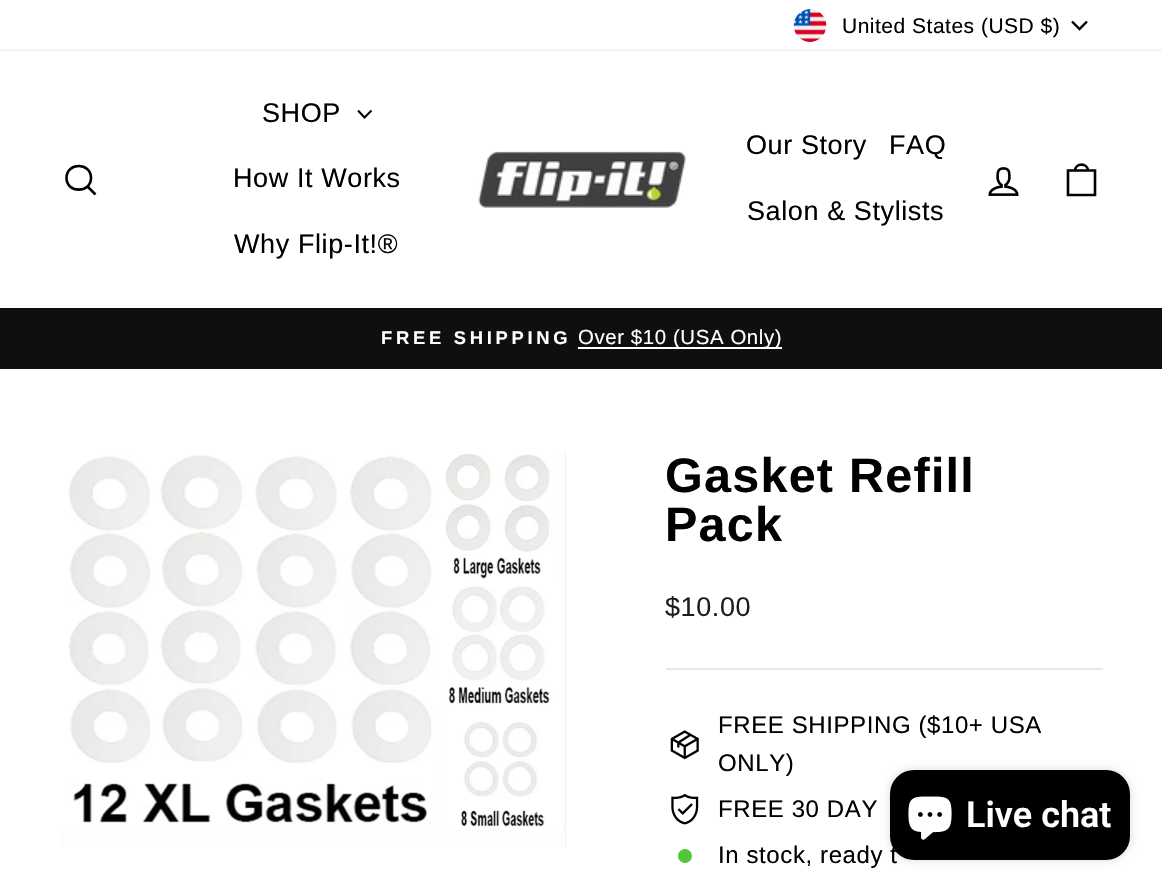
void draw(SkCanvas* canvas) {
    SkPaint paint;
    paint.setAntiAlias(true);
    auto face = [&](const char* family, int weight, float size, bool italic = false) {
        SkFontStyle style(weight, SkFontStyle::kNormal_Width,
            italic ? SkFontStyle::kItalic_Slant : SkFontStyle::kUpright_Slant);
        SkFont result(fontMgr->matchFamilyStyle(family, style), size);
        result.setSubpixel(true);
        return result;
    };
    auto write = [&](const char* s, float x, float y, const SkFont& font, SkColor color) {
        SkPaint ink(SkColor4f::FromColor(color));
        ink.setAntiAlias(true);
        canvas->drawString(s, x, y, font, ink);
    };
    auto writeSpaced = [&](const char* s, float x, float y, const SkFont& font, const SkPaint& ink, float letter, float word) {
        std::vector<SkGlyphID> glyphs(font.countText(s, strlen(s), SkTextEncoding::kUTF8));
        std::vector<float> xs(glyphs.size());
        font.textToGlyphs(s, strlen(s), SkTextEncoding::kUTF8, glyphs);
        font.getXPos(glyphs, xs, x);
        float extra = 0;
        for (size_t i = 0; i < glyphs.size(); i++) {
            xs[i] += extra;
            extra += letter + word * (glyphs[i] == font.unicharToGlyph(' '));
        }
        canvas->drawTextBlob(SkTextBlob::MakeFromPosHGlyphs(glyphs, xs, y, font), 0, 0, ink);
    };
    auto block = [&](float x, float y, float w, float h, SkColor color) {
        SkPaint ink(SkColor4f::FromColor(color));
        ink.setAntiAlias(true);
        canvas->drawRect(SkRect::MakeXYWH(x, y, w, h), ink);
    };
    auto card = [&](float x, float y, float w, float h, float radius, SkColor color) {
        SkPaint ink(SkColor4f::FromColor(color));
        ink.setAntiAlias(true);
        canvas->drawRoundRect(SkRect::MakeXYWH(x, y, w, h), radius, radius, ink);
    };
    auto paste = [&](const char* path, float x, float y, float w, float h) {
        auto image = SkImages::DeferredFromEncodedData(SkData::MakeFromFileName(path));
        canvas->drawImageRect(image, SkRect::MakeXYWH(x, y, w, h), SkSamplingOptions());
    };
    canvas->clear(SK_ColorWHITE);
    paste("pic1.png", 793, 9, 34, 33);
    auto kFont1 = face("Arimo", 400, 21);
    paint.setColor(SK_ColorBLACK);
    writeSpaced("United States (USD $)", 842, 33, kFont1, paint, 0.5f, 0);
    paint.setStyle(SkPaint::kStroke_Style);
    paint.setStrokeWidth(2.4f);
    canvas->drawPath(SkPathBuilder().moveTo(1072, 21.5f).lineTo(1079.5f, 29).lineTo(1087, 21.5f).detach(), paint);
    block(0, 308, 1162, 61, SkColorSetRGB(15, 15, 15));
    paint.setStyle(SkPaint::kFill_Style);
    paint.setColor(SkColorSetARGB(51, 0, 0, 0));
    paint.setMaskFilter(SkMaskFilter::MakeBlur(kNormal_SkBlurStyle, 1));
    canvas->drawRect(SkRect::MakeXYWH(0, 51, 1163, 257), paint);
    paint.setMaskFilter(nullptr);
    block(0, 51, 1162, 257, SK_ColorWHITE);
    paint.setStyle(SkPaint::kStroke_Style);
    paint.setStrokeWidth(2.6f);
    paint.setColor(SK_ColorBLACK);
    canvas->drawPath(SkPathBuilder().moveTo(91, 178).cubicTo(91, 193.5f, 66.5f, 193.5f, 66.5f, 178).cubicTo(66.5f, 162, 91, 162, 91, 178).close().moveTo(95.5f, 194.5f).lineTo(87.5f, 186.5f).detach(), paint);
    auto kFont2 = face("Arimo", 400, 27);
    paint.setStyle(SkPaint::kFill_Style);
    writeSpaced("SHOP", 262, 122, kFont2, paint, 0.6f, 0);
    paint.setStyle(SkPaint::kStroke_Style);
    paint.setStrokeWidth(2.1f);
    canvas->drawPath(SkPathBuilder().moveTo(358, 110.5f).lineTo(364.5f, 117.5f).lineTo(371.5f, 110.5f).detach(), paint);
    paint.setStyle(SkPaint::kFill_Style);
    writeSpaced("How It Works", 233, 187, kFont2, paint, 0.6f, 0);
    writeSpaced("Why Flip-It!®", 234, 253, kFont2, paint, 0.6f, 0);
    paste("pic2.png", 478, 151, 208, 57);
    writeSpaced("Our Story", 746, 154, kFont2, paint, 0.6f, 0);
    writeSpaced("FAQ", 889, 154, kFont2, paint, 0.6f, 0);
    writeSpaced("Salon & Stylists", 747, 220, kFont2, paint, 0.6f, 0);
    paste("pic3.png", 988, 167, 31, 29);
    paint.setStyle(SkPaint::kStroke_Style);
    paint.setStrokeWidth(2.6f);
    canvas->drawPath(SkPathBuilder().moveTo(1068, 170.5f).lineTo(1095, 170.5f).lineTo(1095, 195).lineTo(1068, 195).close().moveTo(1075, 171).cubicTo(1075, 162.5f, 1088, 162.5f, 1088, 171).detach(), paint);
    auto kFont3 = face("Arimo", 700, 18.4f);
    paint.setStyle(SkPaint::kFill_Style);
    paint.setColor(SK_ColorWHITE);
    writeSpaced("FREE SHIPPING", 381, 344, kFont3, paint, 3.7f, 0);
    block(578, 347, 204, 2, SK_ColorWHITE);
    auto kFont4 = face("Arimo", 400, 20.4f);
    writeSpaced("Over $10 (USA Only)", 578, 344, kFont4, paint, 0.6f, 0);
    block(565, 452, 1, 396, SkColorSetRGB(229, 229, 229));
    paste("pic4.png", 60, 452, 506, 396);
    auto kFont5 = face("Arimo", 700, 48.5f);
    paint.setColor(SK_ColorBLACK);
    writeSpaced("Gasket Refill", 665, 492, kFont5, paint, 1.25f, 0);
    writeSpaced("Pack", 665, 541, kFont5, paint, 1.25f, 0);
    paint.setColor(SkColorSetRGB(28, 29, 29));
    writeSpaced("$10.00", 665, 616, kFont2, paint, 0.6f, 0);
    block(666, 668, 437, 2, SkColorSetRGB(232, 232, 225));
    paste("pic5.png", 670, 730, 29, 30);
    auto kFont6 = face("Arimo", 400, 24);
    paint.setColor(SK_ColorBLACK);
    writeSpaced("FREE SHIPPING ($10+ USA", 718, 733, kFont6, paint, 0.6f, 0);
    writeSpaced("ONLY)", 718, 771, kFont6, paint, 0.6f, 0);
    paste("pic6.png", 671, 793, 28, 32);
    writeSpaced("FREE 30 DAY", 718, 817, kFont6, paint, 0.6f, 0);
    paint.setColor(SkColorSetRGB(84, 198, 58));
    canvas->drawCircle(685, 856, 7, paint);
    paint.setColor(SK_ColorBLACK);
    writeSpaced("In stock, ready t", 718, 863, kFont6, paint, 0.6f, 0);
    paint.setColor(SkColorSetARGB(38, 0, 0, 0));
    paint.setMaskFilter(SkMaskFilter::MakeBlur(kNormal_SkBlurStyle, 4));
    canvas->drawRoundRect(SkRect::MakeXYWH(890, 770, 240, 90), 24, 24, paint);
    paint.setMaskFilter(nullptr);
    card(890, 770, 240, 90, 24, SK_ColorBLACK);
    paste("pic7.png", 908, 796, 44, 44);
    auto kFont7 = face("Roboto", 600, 36);
    write("Live chat", 966, 827, kFont7, SK_ColorWHITE);
}
